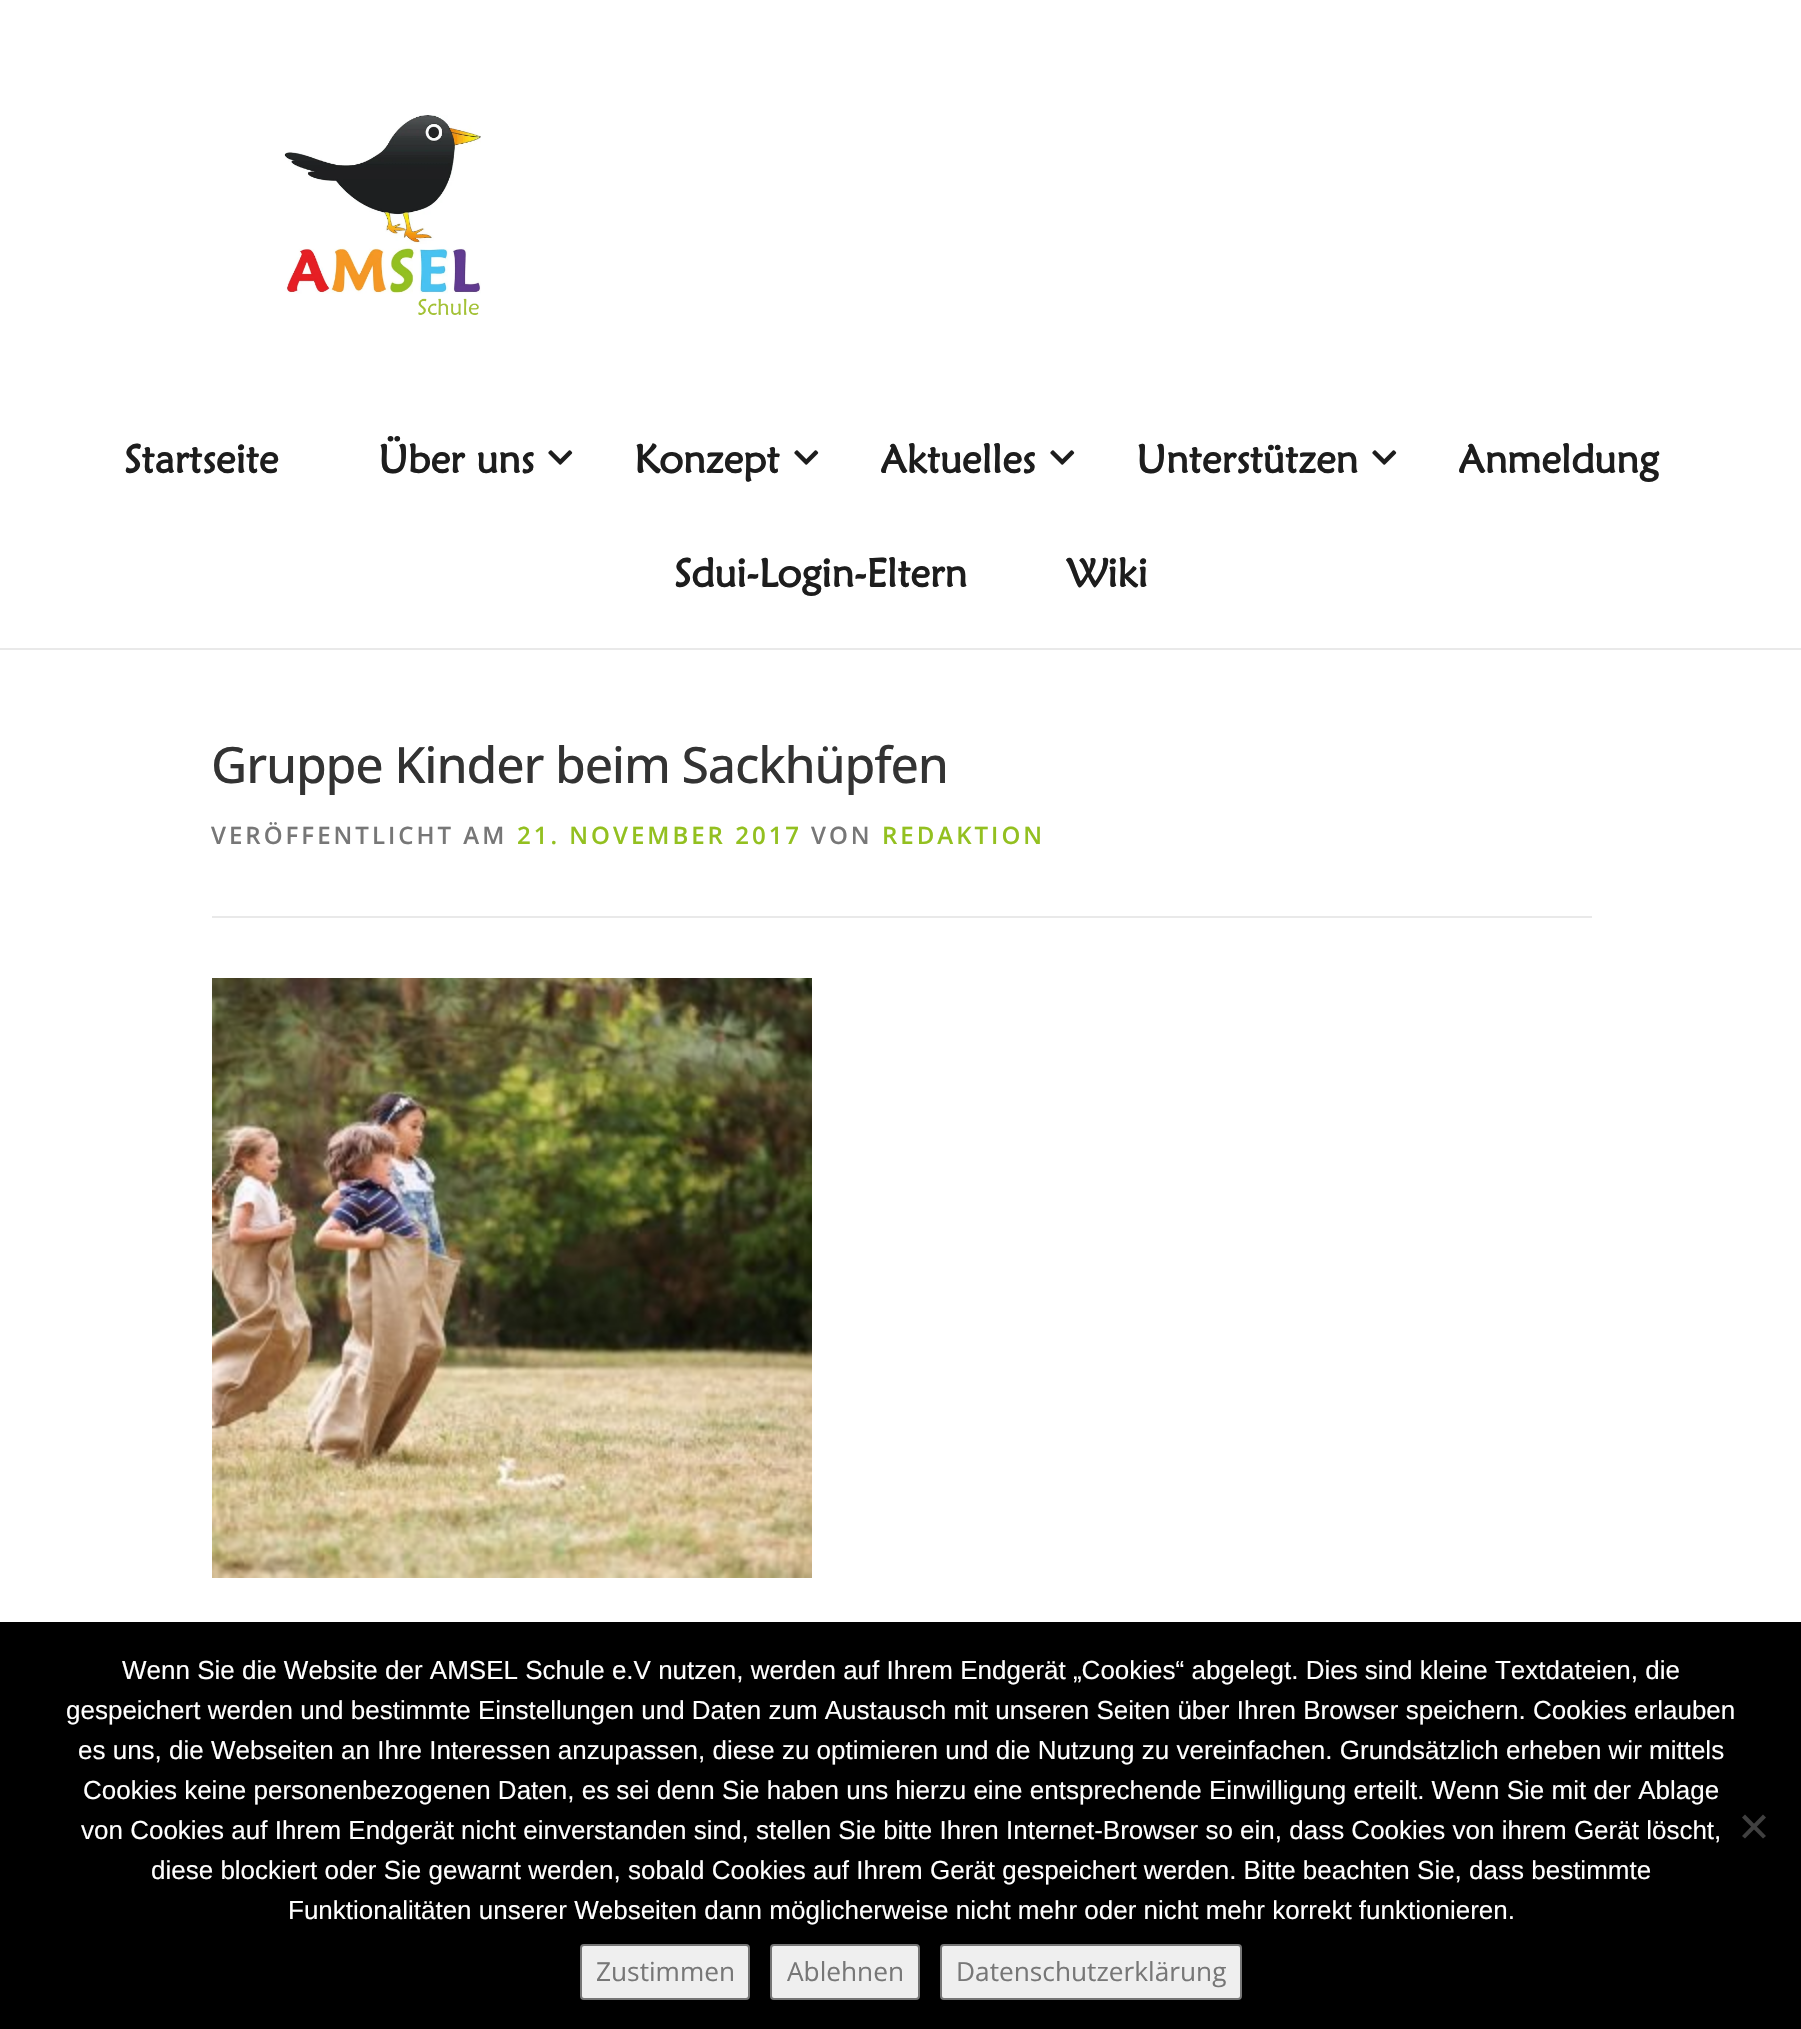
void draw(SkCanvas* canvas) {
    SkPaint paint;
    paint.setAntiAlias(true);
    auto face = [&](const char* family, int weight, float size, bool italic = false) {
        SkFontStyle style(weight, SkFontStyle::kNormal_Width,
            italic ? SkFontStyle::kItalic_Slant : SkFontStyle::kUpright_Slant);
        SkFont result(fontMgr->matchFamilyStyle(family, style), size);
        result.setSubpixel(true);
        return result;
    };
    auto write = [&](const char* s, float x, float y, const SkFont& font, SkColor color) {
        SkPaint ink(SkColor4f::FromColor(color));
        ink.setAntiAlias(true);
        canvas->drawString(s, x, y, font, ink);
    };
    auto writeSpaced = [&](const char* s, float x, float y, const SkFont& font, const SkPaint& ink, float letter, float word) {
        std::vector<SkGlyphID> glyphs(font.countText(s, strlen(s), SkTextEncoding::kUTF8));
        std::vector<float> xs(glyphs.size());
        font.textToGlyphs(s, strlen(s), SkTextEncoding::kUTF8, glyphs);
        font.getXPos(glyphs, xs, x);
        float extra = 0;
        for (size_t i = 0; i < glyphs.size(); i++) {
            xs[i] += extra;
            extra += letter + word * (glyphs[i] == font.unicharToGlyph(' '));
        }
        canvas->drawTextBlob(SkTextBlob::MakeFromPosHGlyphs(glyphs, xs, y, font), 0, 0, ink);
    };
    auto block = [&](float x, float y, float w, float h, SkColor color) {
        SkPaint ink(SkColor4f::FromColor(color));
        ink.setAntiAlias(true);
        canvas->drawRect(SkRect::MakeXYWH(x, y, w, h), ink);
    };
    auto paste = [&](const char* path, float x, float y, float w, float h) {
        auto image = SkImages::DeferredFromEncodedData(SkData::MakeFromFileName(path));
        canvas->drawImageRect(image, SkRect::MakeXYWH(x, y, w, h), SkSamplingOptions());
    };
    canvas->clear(SK_ColorWHITE);
    paste("pic1.png", 284, 115, 197, 200);
    auto kFont1 = face("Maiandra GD", 700, 40);
    write("Startseite", 124, 473, kFont1, SkColorSetRGB(29, 29, 29));
    write("Über uns", 378, 473, kFont1, SkColorSetRGB(29, 29, 29));
    paste("pic2.png", 548, 450, 25, 15);
    write("Konzept", 634, 473, kFont1, SkColorSetRGB(29, 29, 29));
    paste("pic2.png", 794, 450, 25, 15);
    write("Aktuelles", 880, 473, kFont1, SkColorSetRGB(29, 29, 29));
    paste("pic2.png", 1050, 450, 25, 15);
    write("Unterstützen", 1136, 473, kFont1, SkColorSetRGB(29, 29, 29));
    paste("pic2.png", 1372, 450, 25, 15);
    write("Anmeldung", 1458, 473, kFont1, SkColorSetRGB(29, 29, 29));
    write("Sdui-Login-Eltern", 674, 587, kFont1, SkColorSetRGB(29, 29, 29));
    write("Wiki", 1067, 587, kFont1, SkColorSetRGB(29, 29, 29));
    block(0, 648, 1801, 2, SkColorSetRGB(233, 233, 233));
    auto kFont2 = face("Open Sans", 500, 50);
    paint.setColor(SkColorSetRGB(51, 51, 51));
    writeSpaced("Gruppe Kinder beim Sackhüpfen", 211, 783, kFont2, paint, -1.2f, 0);
    block(212, 916, 1380, 2, SkColorSetRGB(233, 233, 233));
    auto kFont3 = face("Open Sans", 600, 24);
    paint.setColor(SkColorSetRGB(119, 119, 119));
    writeSpaced("VERÖFFENTLICHT AM", 211, 844, kFont3, paint, 3, 0);
    paint.setColor(SkColorSetRGB(147, 192, 32));
    writeSpaced("21. NOVEMBER 2017", 517, 844, kFont3, paint, 3, 0);
    paint.setColor(SkColorSetRGB(119, 119, 119));
    writeSpaced("VON", 811, 844, kFont3, paint, 3, 0);
    paint.setColor(SkColorSetRGB(147, 192, 32));
    writeSpaced("REDAKTION", 882, 844, kFont3, paint, 3, 0);
    paste("pic3.png", 212, 978, 600, 600);
    block(0, 1622, 1801, 407, SK_ColorBLACK);
    auto kFont4 = face("Liberation Sans", 400, 26);
    write("Wenn Sie die Website der AMSEL Schule e.V nutzen, werden auf Ihrem Endgerät „Cookies“ abgelegt. Dies sind kleine Textdateien, die", 122, 1679, kFont4, SK_ColorWHITE);
    write("gespeichert werden und bestimmte Einstellungen und Daten zum Austausch mit unseren Seiten über Ihren Browser speichern. Cookies erlauben", 66, 1719, kFont4, SK_ColorWHITE);
    write("es uns, die Webseiten an Ihre Interessen anzupassen, diese zu optimieren und die Nutzung zu vereinfachen. Grundsätzlich erheben wir mittels", 78, 1759, kFont4, SK_ColorWHITE);
    write("Cookies keine personenbezogenen Daten, es sei denn Sie haben uns hierzu eine entsprechende Einwilligung erteilt. Wenn Sie mit der Ablage", 83, 1799, kFont4, SK_ColorWHITE);
    write("von Cookies auf Ihrem Endgerät nicht einverstanden sind, stellen Sie bitte Ihren Internet-Browser so ein, dass Cookies von ihrem Gerät löscht,", 81, 1839, kFont4, SK_ColorWHITE);
    write("diese blockiert oder Sie gewarnt werden, sobald Cookies auf Ihrem Gerät gespeichert werden. Bitte beachten Sie, dass bestimmte", 151, 1879, kFont4, SK_ColorWHITE);
    write("Funktionalitäten unserer Webseiten dann möglicherweise nicht mehr oder nicht mehr korrekt funktionieren.", 288, 1919, kFont4, SK_ColorWHITE);
    paint.setColor(SkColorSetRGB(64, 64, 64));
    canvas->drawPath(SkPathBuilder().moveTo(1763, 1814.5f).lineTo(1766, 1817.5f).lineTo(1745, 1838.5f).lineTo(1742, 1836).close().detach(), paint);
    canvas->drawPath(SkPathBuilder().moveTo(1742, 1817.5f).lineTo(1745, 1814.5f).lineTo(1766, 1836).lineTo(1763, 1838.5f).close().detach(), paint);
    paint.setColor(SkColorSetRGB(239, 239, 239));
    canvas->drawRoundRect(SkRect::MakeXYWH(581, 1945, 168, 54), 3, 3, paint);
    paint.setStyle(SkPaint::kStroke_Style);
    paint.setStrokeWidth(2);
    paint.setColor(SkColorSetRGB(118, 118, 118));
    canvas->drawRoundRect(SkRect::MakeXYWH(581, 1945, 168, 54), 3, 3, paint);
    auto kFont5 = face("Open Sans", 400, 26.25f);
    write("Zustimmen", 596, 1981, kFont5, SkColorSetRGB(119, 119, 119));
    paint.setStyle(SkPaint::kFill_Style);
    paint.setColor(SkColorSetRGB(239, 239, 239));
    canvas->drawRoundRect(SkRect::MakeXYWH(771, 1945, 148, 54), 3, 3, paint);
    paint.setStyle(SkPaint::kStroke_Style);
    paint.setColor(SkColorSetRGB(118, 118, 118));
    canvas->drawRoundRect(SkRect::MakeXYWH(771, 1945, 148, 54), 3, 3, paint);
    write("Ablehnen", 787, 1981, kFont5, SkColorSetRGB(119, 119, 119));
    paint.setStyle(SkPaint::kFill_Style);
    paint.setColor(SkColorSetRGB(239, 239, 239));
    canvas->drawRoundRect(SkRect::MakeXYWH(941, 1945, 300, 54), 3, 3, paint);
    paint.setStyle(SkPaint::kStroke_Style);
    paint.setColor(SkColorSetRGB(118, 118, 118));
    canvas->drawRoundRect(SkRect::MakeXYWH(941, 1945, 300, 54), 3, 3, paint);
    write("Datenschutzerklärung", 956, 1981, kFont5, SkColorSetRGB(119, 119, 119));
}
